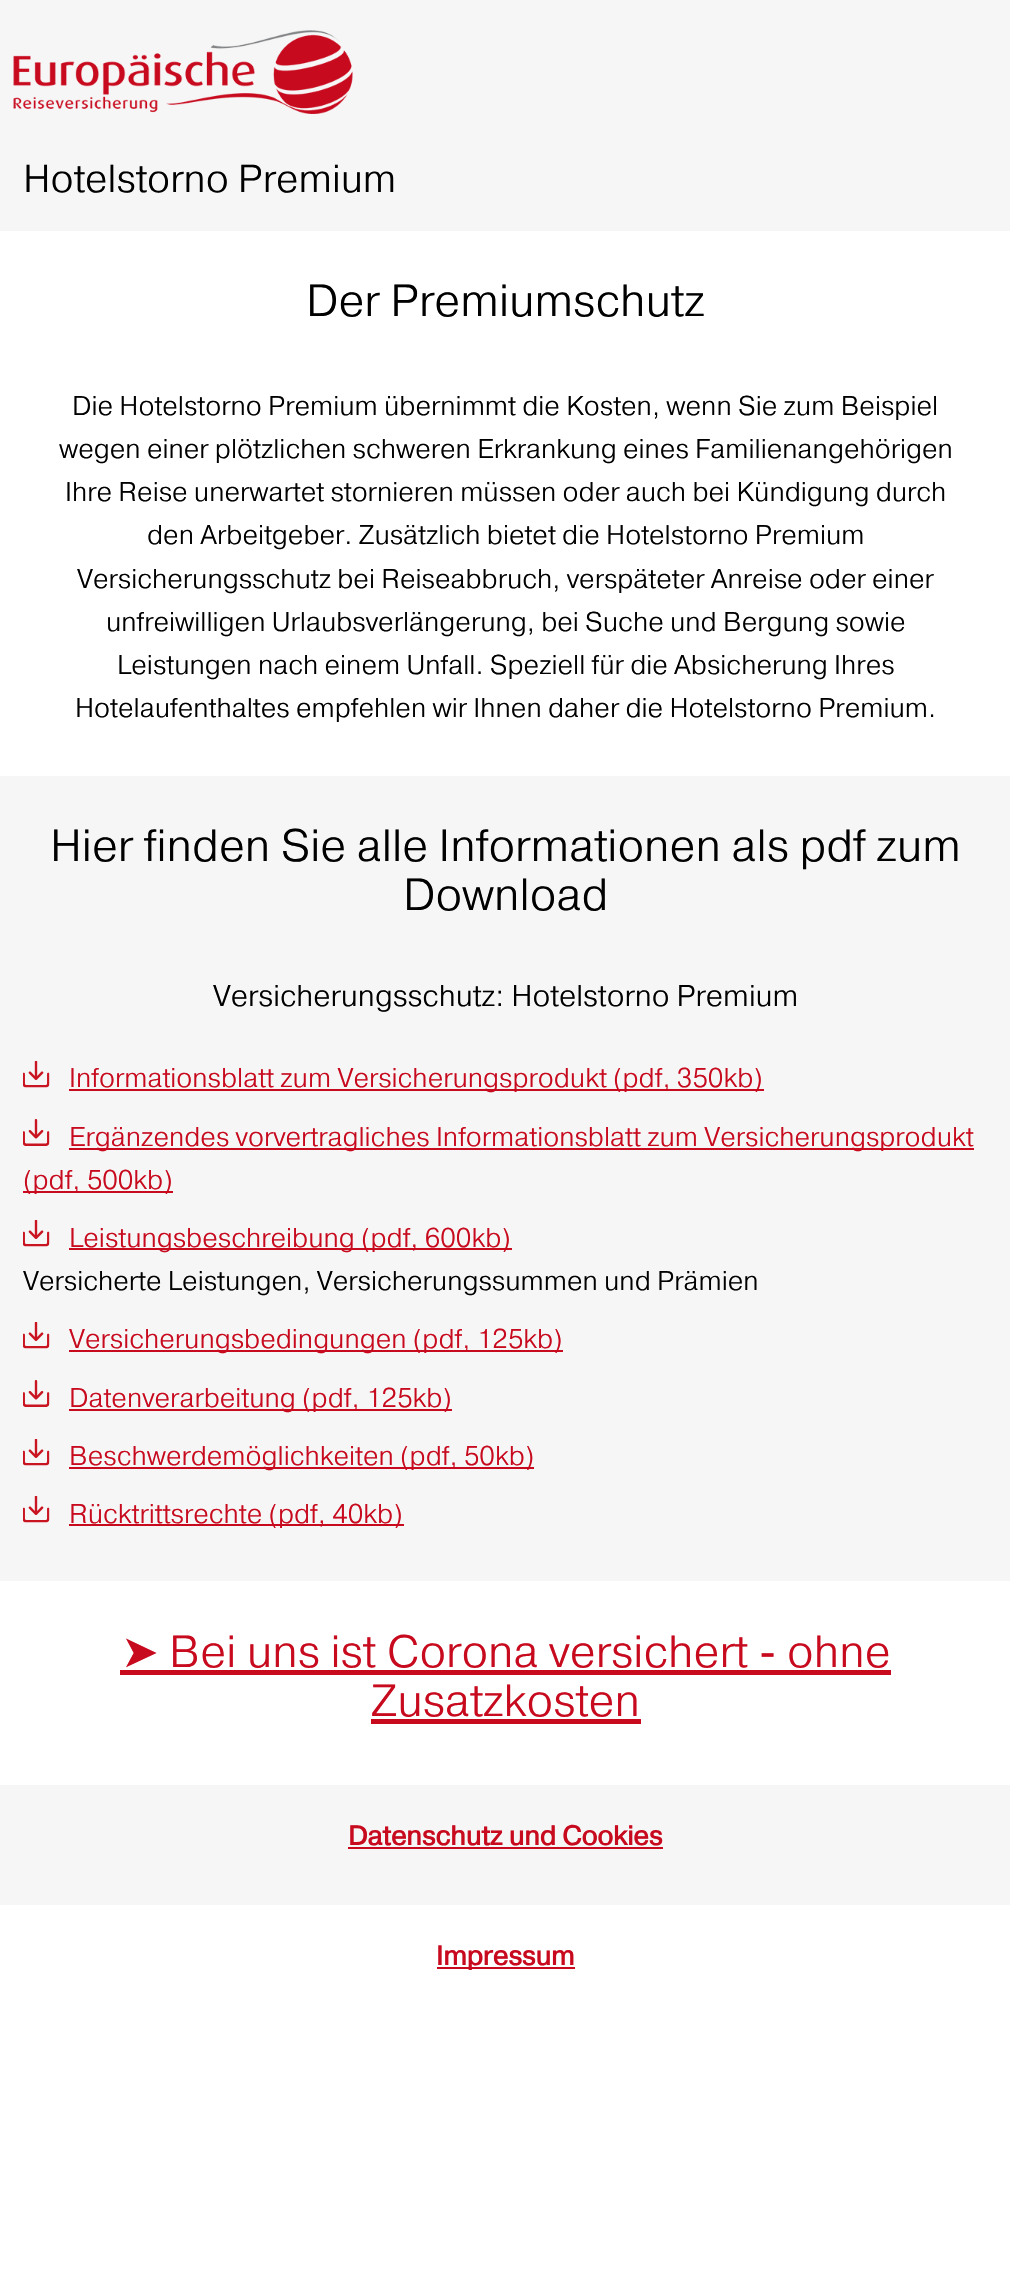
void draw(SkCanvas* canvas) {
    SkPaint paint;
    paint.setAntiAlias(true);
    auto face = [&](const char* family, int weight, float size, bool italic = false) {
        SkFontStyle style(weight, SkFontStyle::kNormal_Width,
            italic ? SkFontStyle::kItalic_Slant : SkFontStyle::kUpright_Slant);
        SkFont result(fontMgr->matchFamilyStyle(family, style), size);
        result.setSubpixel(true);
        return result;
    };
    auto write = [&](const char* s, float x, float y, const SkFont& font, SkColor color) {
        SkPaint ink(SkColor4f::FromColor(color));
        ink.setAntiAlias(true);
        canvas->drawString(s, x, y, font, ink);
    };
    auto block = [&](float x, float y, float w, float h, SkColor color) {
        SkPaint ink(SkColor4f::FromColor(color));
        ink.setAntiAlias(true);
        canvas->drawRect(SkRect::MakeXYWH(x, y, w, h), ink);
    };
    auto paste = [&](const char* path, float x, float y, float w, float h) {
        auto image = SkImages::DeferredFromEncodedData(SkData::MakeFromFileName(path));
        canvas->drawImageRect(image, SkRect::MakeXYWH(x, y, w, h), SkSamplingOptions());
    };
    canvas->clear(SK_ColorWHITE);
    block(0, 0, 1010, 231, SkColorSetRGB(246, 246, 246));
    paste("pic1.png", 13, 30, 340, 84);
    auto kFont1 = face("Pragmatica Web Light", 300, 39);
    write("Hotelstorno Premium", 23, 192, kFont1, SK_ColorBLACK);
    auto kFont2 = face("Pragmatica Web Light", 300, 45);
    write("Der Premiumschutz", 306, 316, kFont2, SK_ColorBLACK);
    auto kFont3 = face("Pragmatica Web Light", 300, 27);
    write("Die Hotelstorno Premium übernimmt die Kosten, wenn Sie zum Beispiel", 72, 415, kFont3, SK_ColorBLACK);
    write("wegen einer plötzlichen schweren Erkrankung eines Familienangehörigen", 59, 458, kFont3, SK_ColorBLACK);
    write("Ihre Reise unerwartet stornieren müssen oder auch bei Kündigung durch", 65, 501, kFont3, SK_ColorBLACK);
    write("den Arbeitgeber. Zusätzlich bietet die Hotelstorno Premium", 147, 544, kFont3, SK_ColorBLACK);
    write("Versicherungsschutz bei Reiseabbruch, verspäteter Anreise oder einer", 77, 588, kFont3, SK_ColorBLACK);
    write("unfreiwilligen Urlaubsverlängerung, bei Suche und Bergung sowie", 106, 631, kFont3, SK_ColorBLACK);
    write("Leistungen nach einem Unfall. Speziell für die Absicherung Ihres", 117, 674, kFont3, SK_ColorBLACK);
    write("Hotelaufenthaltes empfehlen wir Ihnen daher die Hotelstorno Premium.", 75, 717, kFont3, SK_ColorBLACK);
    block(0, 776, 1010, 805, SkColorSetRGB(246, 246, 246));
    write("Hier finden Sie alle Informationen als pdf zum", 50, 861, kFont2, SK_ColorBLACK);
    write("Download", 403, 910, kFont2, SK_ColorBLACK);
    auto kFont4 = face("Pragmatica Web Light", 300, 30);
    write("Versicherungsschutz: Hotelstorno Premium", 213, 1006, kFont4, SK_ColorBLACK);
    paste("pic2.png", 23, 1061, 27, 27);
    block(69, 1089, 695, 2, SkColorSetRGB(200, 10, 30));
    write("Informationsblatt zum Versicherungsprodukt (pdf, 350kb)", 69, 1087, kFont3, SkColorSetRGB(200, 10, 30));
    paste("pic3.png", 23, 1119, 27, 27);
    block(69, 1148, 905, 2, SkColorSetRGB(200, 10, 30));
    write("Ergänzendes vorvertragliches Informationsblatt zum Versicherungsprodukt", 69, 1146, kFont3, SkColorSetRGB(200, 10, 30));
    block(23, 1191, 150, 2, SkColorSetRGB(200, 10, 30));
    write("(pdf, 500kb)", 23, 1189, kFont3, SkColorSetRGB(200, 10, 30));
    paste("pic2.png", 23, 1220, 27, 27);
    block(69, 1248, 443, 2, SkColorSetRGB(200, 10, 30));
    write("Leistungsbeschreibung (pdf, 600kb)", 69, 1247, kFont3, SkColorSetRGB(200, 10, 30));
    write("Versicherte Leistungen, Versicherungssummen und Prämien", 23, 1290, kFont3, SK_ColorBLACK);
    paste("pic2.png", 23, 1322, 27, 27);
    block(69, 1350, 494, 2, SkColorSetRGB(200, 10, 30));
    write("Versicherungsbedingungen (pdf, 125kb)", 69, 1348, kFont3, SkColorSetRGB(200, 10, 30));
    paste("pic3.png", 23, 1380, 27, 27);
    block(69, 1409, 383, 2, SkColorSetRGB(200, 10, 30));
    write("Datenverarbeitung (pdf, 125kb)", 69, 1407, kFont3, SkColorSetRGB(200, 10, 30));
    paste("pic2.png", 23, 1439, 27, 27);
    block(69, 1467, 465, 2, SkColorSetRGB(200, 10, 30));
    write("Beschwerdemöglichkeiten (pdf, 50kb)", 69, 1465, kFont3, SkColorSetRGB(200, 10, 30));
    paste("pic2.png", 23, 1496, 27, 27);
    block(69, 1524, 335, 2, SkColorSetRGB(200, 10, 30));
    write("Rücktrittsrechte (pdf, 40kb)", 69, 1523, kFont3, SkColorSetRGB(200, 10, 30));
    auto kFont5 = face("DejaVu Sans", 400, 45);
    write("➤", 121, 1667, kFont5, SkColorSetRGB(200, 10, 30));
    block(120, 1670, 771, 5, SkColorSetRGB(200, 10, 30));
    write("Bei uns ist Corona versichert - ohne", 169, 1667, kFont2, SkColorSetRGB(200, 10, 30));
    write("Zusatzkosten", 371, 1716, kFont2, SkColorSetRGB(200, 10, 30));
    block(371, 1719, 270, 5, SkColorSetRGB(200, 10, 30));
    block(0, 1785, 1010, 120, SkColorSetRGB(246, 246, 246));
    auto kFont6 = face("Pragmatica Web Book", 700, 27);
    write("Datenschutz und Cookies", 348, 1845, kFont6, SkColorSetRGB(200, 10, 30));
    block(348, 1847, 315, 2, SkColorSetRGB(200, 10, 30));
    block(437, 1967, 138, 2, SkColorSetRGB(200, 10, 30));
    write("Impressum", 436, 1965, kFont6, SkColorSetRGB(200, 10, 30));
}
